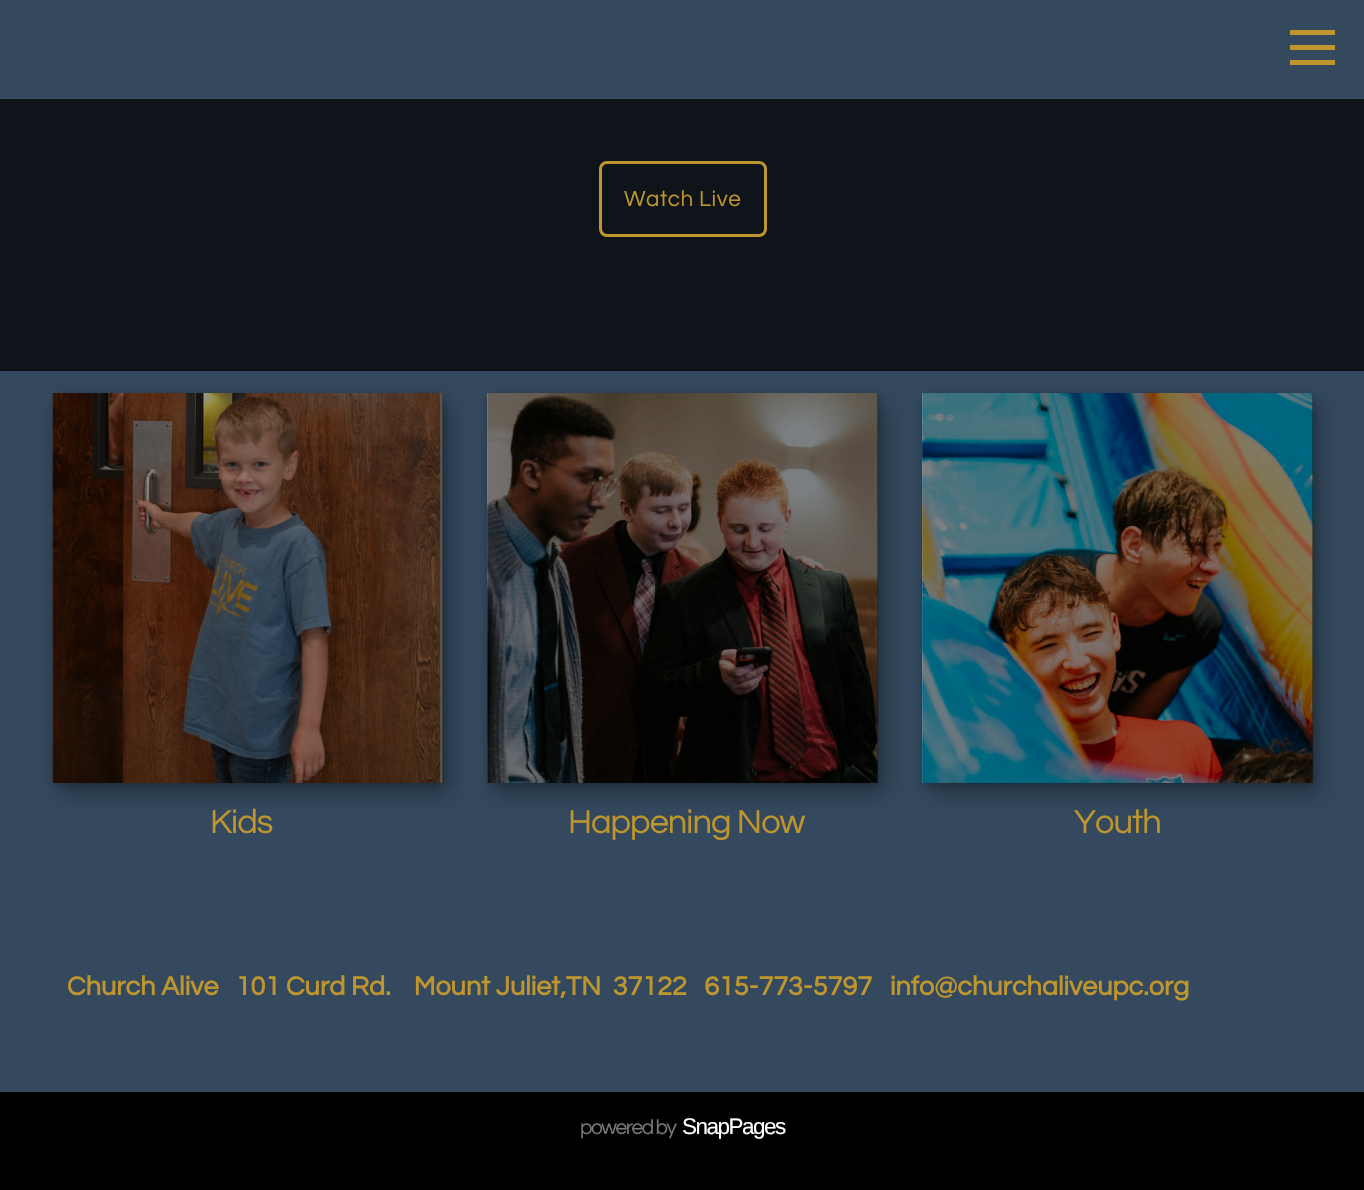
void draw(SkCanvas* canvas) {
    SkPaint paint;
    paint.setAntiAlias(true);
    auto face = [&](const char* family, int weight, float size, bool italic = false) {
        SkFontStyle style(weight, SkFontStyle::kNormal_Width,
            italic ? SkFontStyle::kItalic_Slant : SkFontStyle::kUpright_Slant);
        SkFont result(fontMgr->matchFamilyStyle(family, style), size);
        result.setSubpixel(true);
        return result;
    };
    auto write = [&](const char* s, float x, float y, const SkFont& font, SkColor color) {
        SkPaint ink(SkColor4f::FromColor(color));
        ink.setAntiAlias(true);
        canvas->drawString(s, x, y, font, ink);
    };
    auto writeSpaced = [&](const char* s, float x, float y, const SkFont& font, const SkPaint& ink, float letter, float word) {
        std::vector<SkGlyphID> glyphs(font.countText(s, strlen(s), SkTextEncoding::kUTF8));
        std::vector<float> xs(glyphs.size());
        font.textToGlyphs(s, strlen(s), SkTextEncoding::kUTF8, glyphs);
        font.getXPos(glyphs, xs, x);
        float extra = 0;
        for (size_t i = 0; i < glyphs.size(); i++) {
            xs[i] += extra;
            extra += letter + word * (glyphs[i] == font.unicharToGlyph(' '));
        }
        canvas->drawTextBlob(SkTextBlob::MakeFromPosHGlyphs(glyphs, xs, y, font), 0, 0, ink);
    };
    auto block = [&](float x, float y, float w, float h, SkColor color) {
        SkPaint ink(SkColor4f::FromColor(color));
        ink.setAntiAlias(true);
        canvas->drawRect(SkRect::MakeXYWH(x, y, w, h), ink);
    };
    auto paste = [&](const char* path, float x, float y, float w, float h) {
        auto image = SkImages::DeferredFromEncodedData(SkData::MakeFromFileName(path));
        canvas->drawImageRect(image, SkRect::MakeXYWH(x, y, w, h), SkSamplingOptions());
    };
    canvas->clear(SK_ColorBLACK);
    block(0, 0, 1364, 99, SkColorSetRGB(52, 73, 94));
    block(1290, 30, 45, 5, SkColorSetRGB(191, 150, 46));
    block(1290, 45, 45, 5, SkColorSetRGB(191, 150, 46));
    block(1290, 60, 45, 5, SkColorSetRGB(191, 150, 46));
    block(0, 99, 1364, 272, SkColorSetRGB(14, 20, 25));
    paint.setStyle(SkPaint::kStroke_Style);
    paint.setStrokeWidth(3);
    paint.setColor(SkColorSetRGB(191, 150, 46));
    canvas->drawRoundRect(SkRect::MakeXYWH(600.5f, 162.5f, 165, 73), 6.5f, 6.5f, paint);
    auto kFont1 = face("Questrial", 400, 22.5f);
    paint.setStyle(SkPaint::kFill_Style);
    writeSpaced("Watch Live", 624, 206, kFont1, paint, 0.5f, 0);
    block(0, 371, 1364, 721, SkColorSetRGB(52, 73, 94));
    paint.setColor(SkColorSetARGB(77, 0, 0, 0));
    paint.setMaskFilter(SkMaskFilter::MakeBlur(kNormal_SkBlurStyle, 11));
    canvas->drawRect(SkRect::MakeXYWH(60, 404, 390, 390), paint);
    paint.setMaskFilter(nullptr);
    paint.setColor(SkColorSetARGB(51, 0, 0, 0));
    paint.setMaskFilter(SkMaskFilter::MakeBlur(kNormal_SkBlurStyle, 4));
    canvas->drawRect(SkRect::MakeXYWH(54, 396, 390, 390), paint);
    paint.setMaskFilter(nullptr);
    paste("pic1.png", 52, 393, 391, 390);
    block(53, 393, 390, 390, SkColorSetARGB(105, 0, 0, 0));
    auto kFont2 = face("Questrial", 400, 34.5f);
    paint.setColor(SkColorSetRGB(191, 150, 46));
    writeSpaced("Kids", 210, 833, kFont2, paint, -1, 0);
    paint.setColor(SkColorSetARGB(77, 0, 0, 0));
    paint.setMaskFilter(SkMaskFilter::MakeBlur(kNormal_SkBlurStyle, 11));
    canvas->drawRect(SkRect::MakeXYWH(495, 404, 390, 390), paint);
    paint.setMaskFilter(nullptr);
    paint.setColor(SkColorSetARGB(51, 0, 0, 0));
    paint.setMaskFilter(SkMaskFilter::MakeBlur(kNormal_SkBlurStyle, 4));
    canvas->drawRect(SkRect::MakeXYWH(489, 396, 390, 390), paint);
    paint.setMaskFilter(nullptr);
    paste("pic2.png", 487, 393, 391, 390);
    block(488, 393, 390, 390, SkColorSetARGB(105, 0, 0, 0));
    paint.setColor(SkColorSetRGB(191, 150, 46));
    writeSpaced("Happening Now", 568, 833, kFont2, paint, -1, 0);
    paint.setColor(SkColorSetARGB(77, 0, 0, 0));
    paint.setMaskFilter(SkMaskFilter::MakeBlur(kNormal_SkBlurStyle, 11));
    canvas->drawRect(SkRect::MakeXYWH(930, 404, 390, 390), paint);
    paint.setMaskFilter(nullptr);
    paint.setColor(SkColorSetARGB(51, 0, 0, 0));
    paint.setMaskFilter(SkMaskFilter::MakeBlur(kNormal_SkBlurStyle, 4));
    canvas->drawRect(SkRect::MakeXYWH(924, 396, 390, 390), paint);
    paint.setMaskFilter(nullptr);
    paste("pic3.png", 922, 393, 391, 390);
    block(923, 393, 390, 390, SkColorSetARGB(105, 0, 0, 0));
    paint.setColor(SkColorSetRGB(191, 150, 46));
    writeSpaced("Youth", 1074, 833, kFont2, paint, -1, 0);
    auto kFont3 = face("Questrial", 700, 27);
    write("Church Alive   101 Curd Rd.    Mount Juliet,TN  37122   615-773-5797", 67, 995, kFont3, SkColorSetRGB(191, 150, 46));
    write("info@churchaliveupc.org", 890, 995, kFont3, SkColorSetRGB(191, 150, 46));
    auto kFont4 = face("Questrial", 400, 21);
    paint.setColor(SkColorSetRGB(119, 119, 119));
    writeSpaced("powered by", 580, 1134, kFont4, paint, -1.5f, 0);
    auto kFont5 = face("Liberation Sans", 400, 22.5f);
    paint.setColor(SK_ColorWHITE);
    writeSpaced("SnapPages", 682, 1134, kFont5, paint, -1.5f, 0);
}
